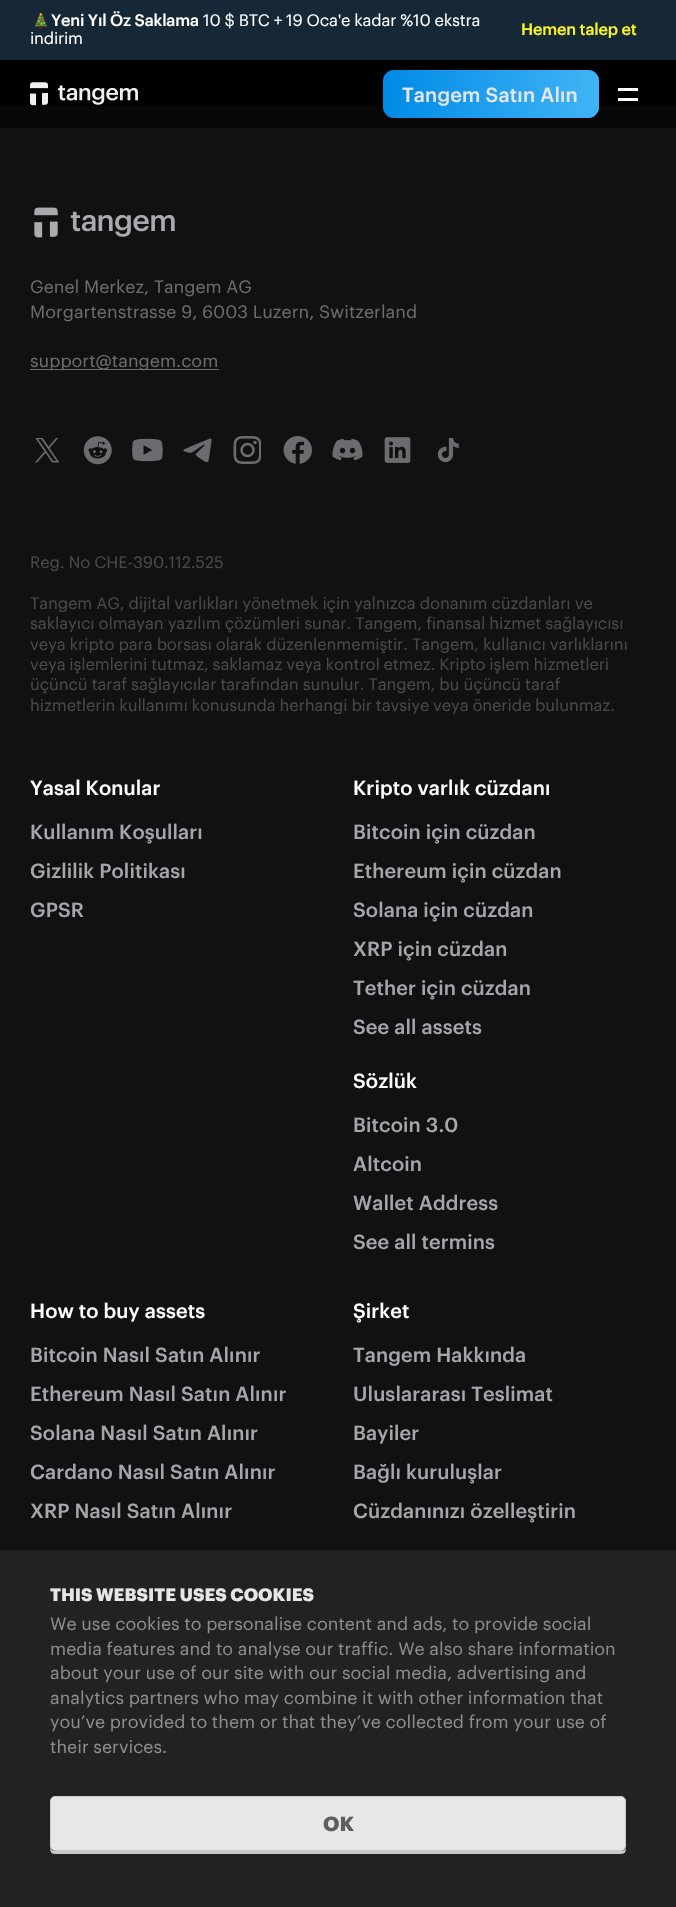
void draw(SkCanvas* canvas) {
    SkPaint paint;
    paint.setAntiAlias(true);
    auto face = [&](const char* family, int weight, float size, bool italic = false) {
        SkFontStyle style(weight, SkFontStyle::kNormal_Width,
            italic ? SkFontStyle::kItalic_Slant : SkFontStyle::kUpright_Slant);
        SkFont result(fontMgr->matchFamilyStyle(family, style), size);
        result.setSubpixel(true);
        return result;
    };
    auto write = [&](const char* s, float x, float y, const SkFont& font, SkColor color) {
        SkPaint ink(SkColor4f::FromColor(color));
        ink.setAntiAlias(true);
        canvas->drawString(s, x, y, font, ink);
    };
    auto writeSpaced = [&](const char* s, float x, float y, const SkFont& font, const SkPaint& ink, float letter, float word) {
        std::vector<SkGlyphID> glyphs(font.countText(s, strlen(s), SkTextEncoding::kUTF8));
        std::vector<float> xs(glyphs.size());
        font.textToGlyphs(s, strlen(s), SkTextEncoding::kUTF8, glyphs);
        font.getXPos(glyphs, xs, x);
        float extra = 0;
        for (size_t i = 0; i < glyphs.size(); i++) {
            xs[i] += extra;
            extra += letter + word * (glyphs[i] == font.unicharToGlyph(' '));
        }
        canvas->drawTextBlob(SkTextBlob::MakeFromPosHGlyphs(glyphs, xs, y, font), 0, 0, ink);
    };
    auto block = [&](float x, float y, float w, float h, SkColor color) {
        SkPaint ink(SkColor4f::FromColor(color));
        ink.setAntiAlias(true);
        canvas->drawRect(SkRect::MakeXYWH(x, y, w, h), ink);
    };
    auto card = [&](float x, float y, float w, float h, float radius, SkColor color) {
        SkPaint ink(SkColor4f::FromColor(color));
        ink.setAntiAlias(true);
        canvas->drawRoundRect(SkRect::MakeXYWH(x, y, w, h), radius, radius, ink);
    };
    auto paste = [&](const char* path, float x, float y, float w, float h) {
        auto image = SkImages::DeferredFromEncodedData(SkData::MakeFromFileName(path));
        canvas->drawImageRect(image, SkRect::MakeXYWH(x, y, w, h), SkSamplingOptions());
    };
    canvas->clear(SK_ColorBLACK);
    block(0, 0, 676, 60, SkColorSetRGB(22, 39, 53));
    paste("pic1.png", 34, 13, 13, 16);
    auto kFont1 = face("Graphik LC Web", 500, 16.25f);
    paint.setColor(SK_ColorWHITE);
    writeSpaced("Yeni Yıl Öz Saklama", 51, 26, kFont1, paint, -0.25f, 0);
    auto kFont2 = face("Graphik LC Web", 400, 16.25f);
    writeSpaced("10 $ BTC + 19 Oca'e kadar %10 ekstra", 203, 26, kFont2, paint, -0.25f, 0);
    writeSpaced("indirim", 30, 44, kFont2, paint, -0.25f, 0);
    paint.setColor(SkColorSetRGB(248, 243, 43));
    writeSpaced("Hemen talep et", 521, 35, kFont1, paint, -0.25f, 0);
    paste("pic2.png", 30, 82, 108, 24);
    block(0, 106, 676, 22, SkColorSetRGB(7, 7, 7));
    card(383, 70, 216, 48, 11, SkColorSetARGB(230, 0, 153, 255));
    {
        const SkColor colors[] = {SkColorSetARGB(0, 102, 204, 255), SkColorSetARGB(161, 102, 204, 255)};
        const float stops[] = {0, 1};
        const SkPoint ends[] = {{383, 94}, {599, 94}};
        paint.setShader(SkGradientShader::MakeLinear(ends, colors, stops, 2, SkTileMode::kClamp));
        paint.setAlpha(255);
    }
    canvas->drawRoundRect(SkRect::MakeXYWH(383, 70, 216, 48), 11, 11, paint);
    auto kFont3 = face("Graphik LC Web", 500, 20);
    paint.setShader(nullptr);
    paint.setColor(SkColorSetRGB(230, 230, 230));
    writeSpaced("Tangem Satın Alın", 402, 102, kFont3, paint, 0.1f, 0);
    block(618, 88, 20, 3, SK_ColorWHITE);
    block(618, 98, 20, 3, SK_ColorWHITE);
    block(0, 128, 676, 1779, SkColorSetRGB(17, 17, 17));
    paste("pic3.png", 34, 207, 141, 31);
    auto kFont4 = face("Graphik LC Web", 400, 17.5f);
    write("Genel Merkez, Tangem AG", 30, 293, kFont4, SkColorSetRGB(108, 108, 112));
    write("Morgartenstrasse 9, 6003 Luzern, Switzerland", 30, 318, kFont4, SkColorSetRGB(108, 108, 112));
    block(30, 369, 189, 1, SkColorSetRGB(108, 108, 112));
    write("support@tangem.com", 30, 367, kFont4, SkColorSetRGB(108, 108, 112));
    paste("pic4.png", 35, 438, 24, 25);
    paste("pic5.png", 83, 436, 29, 29);
    paste("pic6.png", 132, 438, 31, 24);
    paste("pic7.png", 183, 438, 29, 25);
    paste("pic8.png", 233, 436, 28, 28);
    paste("pic9.png", 283, 436, 29, 28);
    paste("pic10.png", 332, 438, 31, 23);
    paste("pic11.png", 384, 437, 27, 26);
    paste("pic12.png", 437, 437, 22, 26);
    paint.setColor(SkColorSetRGB(73, 73, 73));
    writeSpaced("Reg. No CHE-390.112.525", 30, 568, kFont2, paint, -0.15f, 0);
    writeSpaced("Tangem AG, dijital varlıkları yönetmek için yalnızca donanım cüzdanları ve", 30, 609, kFont2, paint, -0.15f, 0);
    writeSpaced("saklayıcı olmayan yazılım çözümleri sunar. Tangem, finansal hizmet sağlayıcısı", 30, 629, kFont2, paint, -0.15f, 0);
    writeSpaced("veya kripto para borsası olarak düzenlenmemiştir. Tangem, kullanıcı varlıklarını", 30, 650, kFont2, paint, -0.15f, 0);
    writeSpaced("veya işlemlerini tutmaz, saklamaz veya kontrol etmez. Kripto işlem hizmetleri", 30, 670, kFont2, paint, -0.15f, -0.25f);
    writeSpaced("üçüncü taraf sağlayıcılar tarafından sunulur. Tangem, bu üçüncü taraf", 30, 690, kFont2, paint, -0.15f, 0);
    writeSpaced("hizmetlerin kullanımı konusunda herhangi bir tavsiye veya öneride bulunmaz.", 30, 711, kFont2, paint, -0.15f, -0.25f);
    paint.setColor(SK_ColorWHITE);
    writeSpaced("Yasal Konular", 30, 795, kFont3, paint, 0.05f, 0);
    paint.setColor(SkColorSetRGB(166, 165, 172));
    writeSpaced("Kullanım Koşulları", 30, 839, kFont3, paint, 0.05f, 0);
    writeSpaced("Gizlilik Politikası", 30, 878, kFont3, paint, 0.05f, 0);
    writeSpaced("GPSR", 30, 917, kFont3, paint, 0.05f, 0);
    paint.setColor(SK_ColorWHITE);
    writeSpaced("Kripto varlık cüzdanı", 353, 795, kFont3, paint, 0.05f, 0);
    paint.setColor(SkColorSetRGB(166, 165, 172));
    writeSpaced("Bitcoin için cüzdan", 353, 839, kFont3, paint, 0.05f, 0);
    writeSpaced("Ethereum için cüzdan", 353, 878, kFont3, paint, 0.05f, 0);
    writeSpaced("Solana için cüzdan", 353, 917, kFont3, paint, 0.05f, 0);
    writeSpaced("XRP için cüzdan", 353, 956, kFont3, paint, 0.05f, 0);
    writeSpaced("Tether için cüzdan", 353, 995, kFont3, paint, 0.05f, 0);
    writeSpaced("See all assets", 353, 1034, kFont3, paint, 0.05f, 0);
    paint.setColor(SK_ColorWHITE);
    writeSpaced("Sözlük", 353, 1088, kFont3, paint, 0.05f, 0);
    paint.setColor(SkColorSetRGB(166, 165, 172));
    writeSpaced("Bitcoin 3.0", 353, 1132, kFont3, paint, 0.05f, 0);
    writeSpaced("Altcoin", 353, 1171, kFont3, paint, 0.05f, 0);
    writeSpaced("Wallet Address", 353, 1210, kFont3, paint, 0.05f, 0);
    writeSpaced("See all termins", 353, 1249, kFont3, paint, 0.05f, 0);
    paint.setColor(SK_ColorWHITE);
    writeSpaced("How to buy assets", 30, 1318, kFont3, paint, 0.05f, 0);
    paint.setColor(SkColorSetRGB(166, 165, 172));
    writeSpaced("Bitcoin Nasıl Satın Alınır", 30, 1362, kFont3, paint, 0.05f, 0);
    writeSpaced("Ethereum Nasıl Satın Alınır", 30, 1401, kFont3, paint, 0.05f, 0);
    writeSpaced("Solana Nasıl Satın Alınır", 30, 1440, kFont3, paint, 0.05f, 0);
    writeSpaced("Cardano Nasıl Satın Alınır", 30, 1479, kFont3, paint, 0.05f, 0);
    writeSpaced("XRP Nasıl Satın Alınır", 30, 1518, kFont3, paint, 0.05f, 0);
    paint.setColor(SK_ColorWHITE);
    writeSpaced("Şirket", 353, 1318, kFont3, paint, 0.05f, 0);
    paint.setColor(SkColorSetRGB(166, 165, 172));
    writeSpaced("Tangem Hakkında", 353, 1362, kFont3, paint, 0.05f, 0);
    writeSpaced("Uluslararası Teslimat", 353, 1401, kFont3, paint, 0.05f, 0);
    writeSpaced("Bayiler", 353, 1440, kFont3, paint, 0.05f, 0);
    writeSpaced("Bağlı kuruluşlar", 353, 1479, kFont3, paint, 0.05f, 0);
    writeSpaced("Cüzdanınızı özelleştirin", 353, 1518, kFont3, paint, 0.05f, 0);
    block(0, 1550, 676, 357, SkColorSetARGB(230, 36, 36, 39));
    auto kFont5 = face("Graphik LC Web", 700, 17.5f);
    write("THIS WEBSITE USES COOKIES", 50, 1601, kFont5, SkColorSetRGB(230, 230, 230));
    write("We use cookies to personalise content and ads, to provide social", 50, 1630, kFont4, SkColorSetRGB(141, 141, 141));
    write("media features and to analyse our traffic. We also share information", 50, 1655, kFont4, SkColorSetRGB(141, 141, 141));
    write("about your use of our site with our social media, advertising and", 50, 1679, kFont4, SkColorSetRGB(141, 141, 141));
    write("analytics partners who may combine it with other information that", 50, 1704, kFont4, SkColorSetRGB(141, 141, 141));
    write("you’ve provided to them or that they’ve collected from your use of", 50, 1728, kFont4, SkColorSetRGB(141, 141, 141));
    write("their services.", 50, 1753, kFont4, SkColorSetRGB(141, 141, 141));
    paint.setColor(SkColorSetRGB(201, 201, 201));
    canvas->drawPath(SkPathBuilder().moveTo(50, 1846).cubicTo(50, 1850, 50, 1854, 55, 1854).lineTo(621, 1854).cubicTo(625, 1854, 626, 1851, 626, 1848).cubicTo(625, 1850, 623, 1851, 621, 1851).lineTo(55, 1851).cubicTo(52, 1851, 50, 1849, 50, 1846).close().detach(), paint);
    paint.setColor(SkColorSetRGB(231, 231, 231));
    canvas->drawRoundRect(SkRect::MakeXYWH(50.5f, 1796.5f, 575, 54), 4.5f, 4.5f, paint);
    paint.setStyle(SkPaint::kStroke_Style);
    paint.setStrokeWidth(1);
    paint.setColor(SkColorSetRGB(201, 201, 201));
    canvas->drawRoundRect(SkRect::MakeXYWH(50.5f, 1796.5f, 575, 54), 4.5f, 4.5f, paint);
    auto kFont6 = face("Graphik LC Web", 700, 20);
    write("OK", 323, 1831, kFont6, SkColorSetRGB(94, 94, 94));
}
